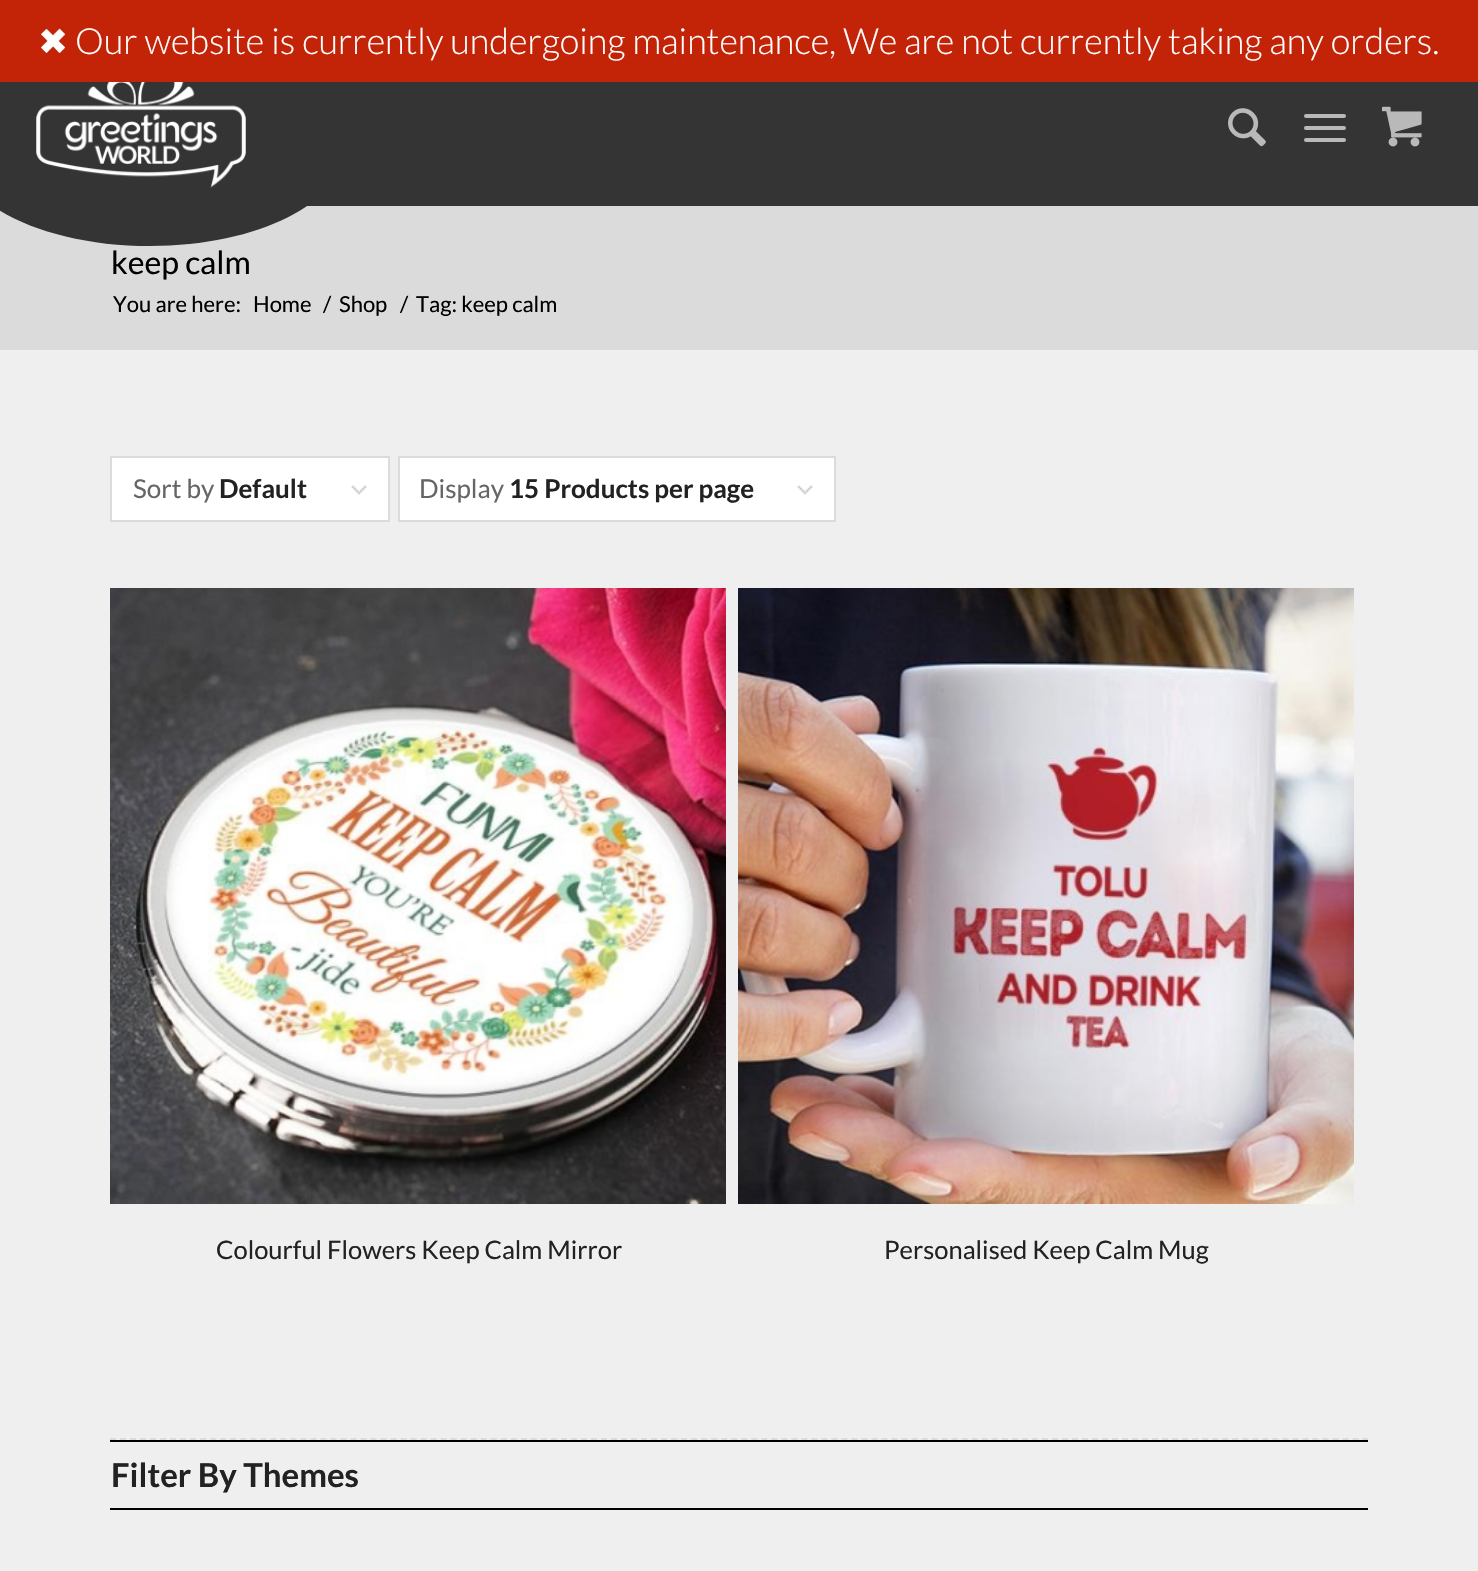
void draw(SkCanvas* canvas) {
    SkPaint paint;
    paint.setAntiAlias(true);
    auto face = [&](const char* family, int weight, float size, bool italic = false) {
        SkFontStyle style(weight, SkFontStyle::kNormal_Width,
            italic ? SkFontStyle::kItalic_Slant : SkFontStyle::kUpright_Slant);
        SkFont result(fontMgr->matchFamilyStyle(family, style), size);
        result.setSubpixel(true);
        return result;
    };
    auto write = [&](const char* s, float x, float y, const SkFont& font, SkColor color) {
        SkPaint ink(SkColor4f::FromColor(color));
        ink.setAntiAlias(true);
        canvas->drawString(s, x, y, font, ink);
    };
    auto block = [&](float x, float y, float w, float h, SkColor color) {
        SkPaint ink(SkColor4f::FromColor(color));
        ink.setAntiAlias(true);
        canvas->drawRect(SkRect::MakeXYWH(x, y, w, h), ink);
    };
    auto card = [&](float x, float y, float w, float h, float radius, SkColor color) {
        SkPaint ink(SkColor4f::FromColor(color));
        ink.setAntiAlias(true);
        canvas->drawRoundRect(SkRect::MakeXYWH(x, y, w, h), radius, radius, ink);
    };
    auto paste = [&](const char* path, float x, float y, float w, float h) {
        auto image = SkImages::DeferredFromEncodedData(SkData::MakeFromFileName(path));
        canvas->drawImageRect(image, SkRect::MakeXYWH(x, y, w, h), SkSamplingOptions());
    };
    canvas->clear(SkColorSetRGB(219, 219, 219));
    block(307, 82, 1171, 124, SkColorSetRGB(52, 52, 52));
    paint.setColor(SkColorSetRGB(52, 52, 52));
    canvas->drawPath(SkPathBuilder().moveTo(150, 30).cubicTo(258, 30, 345, 74, 345, 128).lineTo(345, 148).cubicTo(345, 202, 258, 246, 150, 246).cubicTo(42, 246, -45, 202, -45, 148).lineTo(-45, 128).cubicTo(-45, 74, 42, 30, 150, 30).close().detach(), paint);
    block(0, 0, 1478, 82, SkColorSetRGB(195, 36, 8));
    auto kFont1 = face("DejaVu Sans", 400, 36);
    write("✖", 38, 54, kFont1, SK_ColorWHITE);
    auto kFont2 = face("Lato", 300, 36);
    write("Our website is currently undergoing maintenance, We are not currently taking any orders.", 75, 54, kFont2, SK_ColorWHITE);
    paste("pic1.png", 36, 82, 210, 106);
    paste("pic2.png", 1228, 108, 38, 39);
    card(1304, 126, 42, 4, 2, SkColorSetRGB(185, 185, 185));
    card(1304, 114, 42, 4, 2, SkColorSetRGB(185, 185, 185));
    card(1304, 138, 42, 4, 2, SkColorSetRGB(185, 185, 185));
    paste("pic3.png", 1382, 106, 40, 41);
    auto kFont3 = face("Lato", 400, 32);
    write("keep calm", 111, 274, kFont3, SK_ColorBLACK);
    auto kFont4 = face("Lato", 400, 22);
    write("You are here:", 113, 312, kFont4, SK_ColorBLACK);
    write("Home", 253, 312, kFont4, SK_ColorBLACK);
    write("/", 323, 312, kFont4, SK_ColorBLACK);
    write("Shop", 339, 312, kFont4, SK_ColorBLACK);
    write("/", 400, 312, kFont4, SK_ColorBLACK);
    write("Tag: keep calm", 416, 312, kFont4, SK_ColorBLACK);
    block(0, 350, 1478, 1221, SkColorSetRGB(239, 239, 239));
    block(112, 458, 276, 62, SK_ColorWHITE);
    paste("pic4.png", 351, 485, 16, 10);
    paint.setStyle(SkPaint::kStroke_Style);
    paint.setStrokeWidth(2);
    paint.setColor(SkColorSetRGB(219, 219, 219));
    canvas->drawRect(SkRect::MakeXYWH(111, 457, 278, 64), paint);
    auto kFont5 = face("Lato", 400, 26);
    write("Sort by", 133, 498, kFont5, SkColorSetRGB(102, 102, 102));
    auto kFont6 = face("Lato", 700, 26);
    write("Default", 219, 498, kFont6, SkColorSetRGB(34, 34, 34));
    block(400, 458, 434, 62, SK_ColorWHITE);
    paste("pic4.png", 797, 485, 16, 10);
    canvas->drawRect(SkRect::MakeXYWH(399, 457, 436, 64), paint);
    write("Display", 419, 498, kFont5, SkColorSetRGB(102, 102, 102));
    write("15 Products per page", 509, 498, kFont6, SkColorSetRGB(34, 34, 34));
    paste("pic5.png", 110, 588, 616, 616);
    auto kFont7 = face("Lato", 400, 25.5f);
    write("Colourful Flowers Keep Calm Mirror", 216, 1259, kFont7, SkColorSetRGB(34, 34, 34));
    paste("pic6.png", 738, 588, 616, 616);
    write("Personalised Keep Calm Mug", 884, 1259, kFont7, SkColorSetRGB(34, 34, 34));
    paint.setPathEffect(SkDashPathEffect::Make({{6, 4.02f}}, 0));
    canvas->drawPath(SkPathBuilder().moveTo(110, 1439).lineTo(1368, 1439).detach(), paint);
    paint.setPathEffect(nullptr);
    block(110, 1440, 1258, 2, SK_ColorBLACK);
    block(110, 1508, 1258, 2, SK_ColorBLACK);
    auto kFont8 = face("Lato", 700, 33);
    write("Filter By Themes", 111, 1487, kFont8, SkColorSetRGB(34, 34, 34));
}
